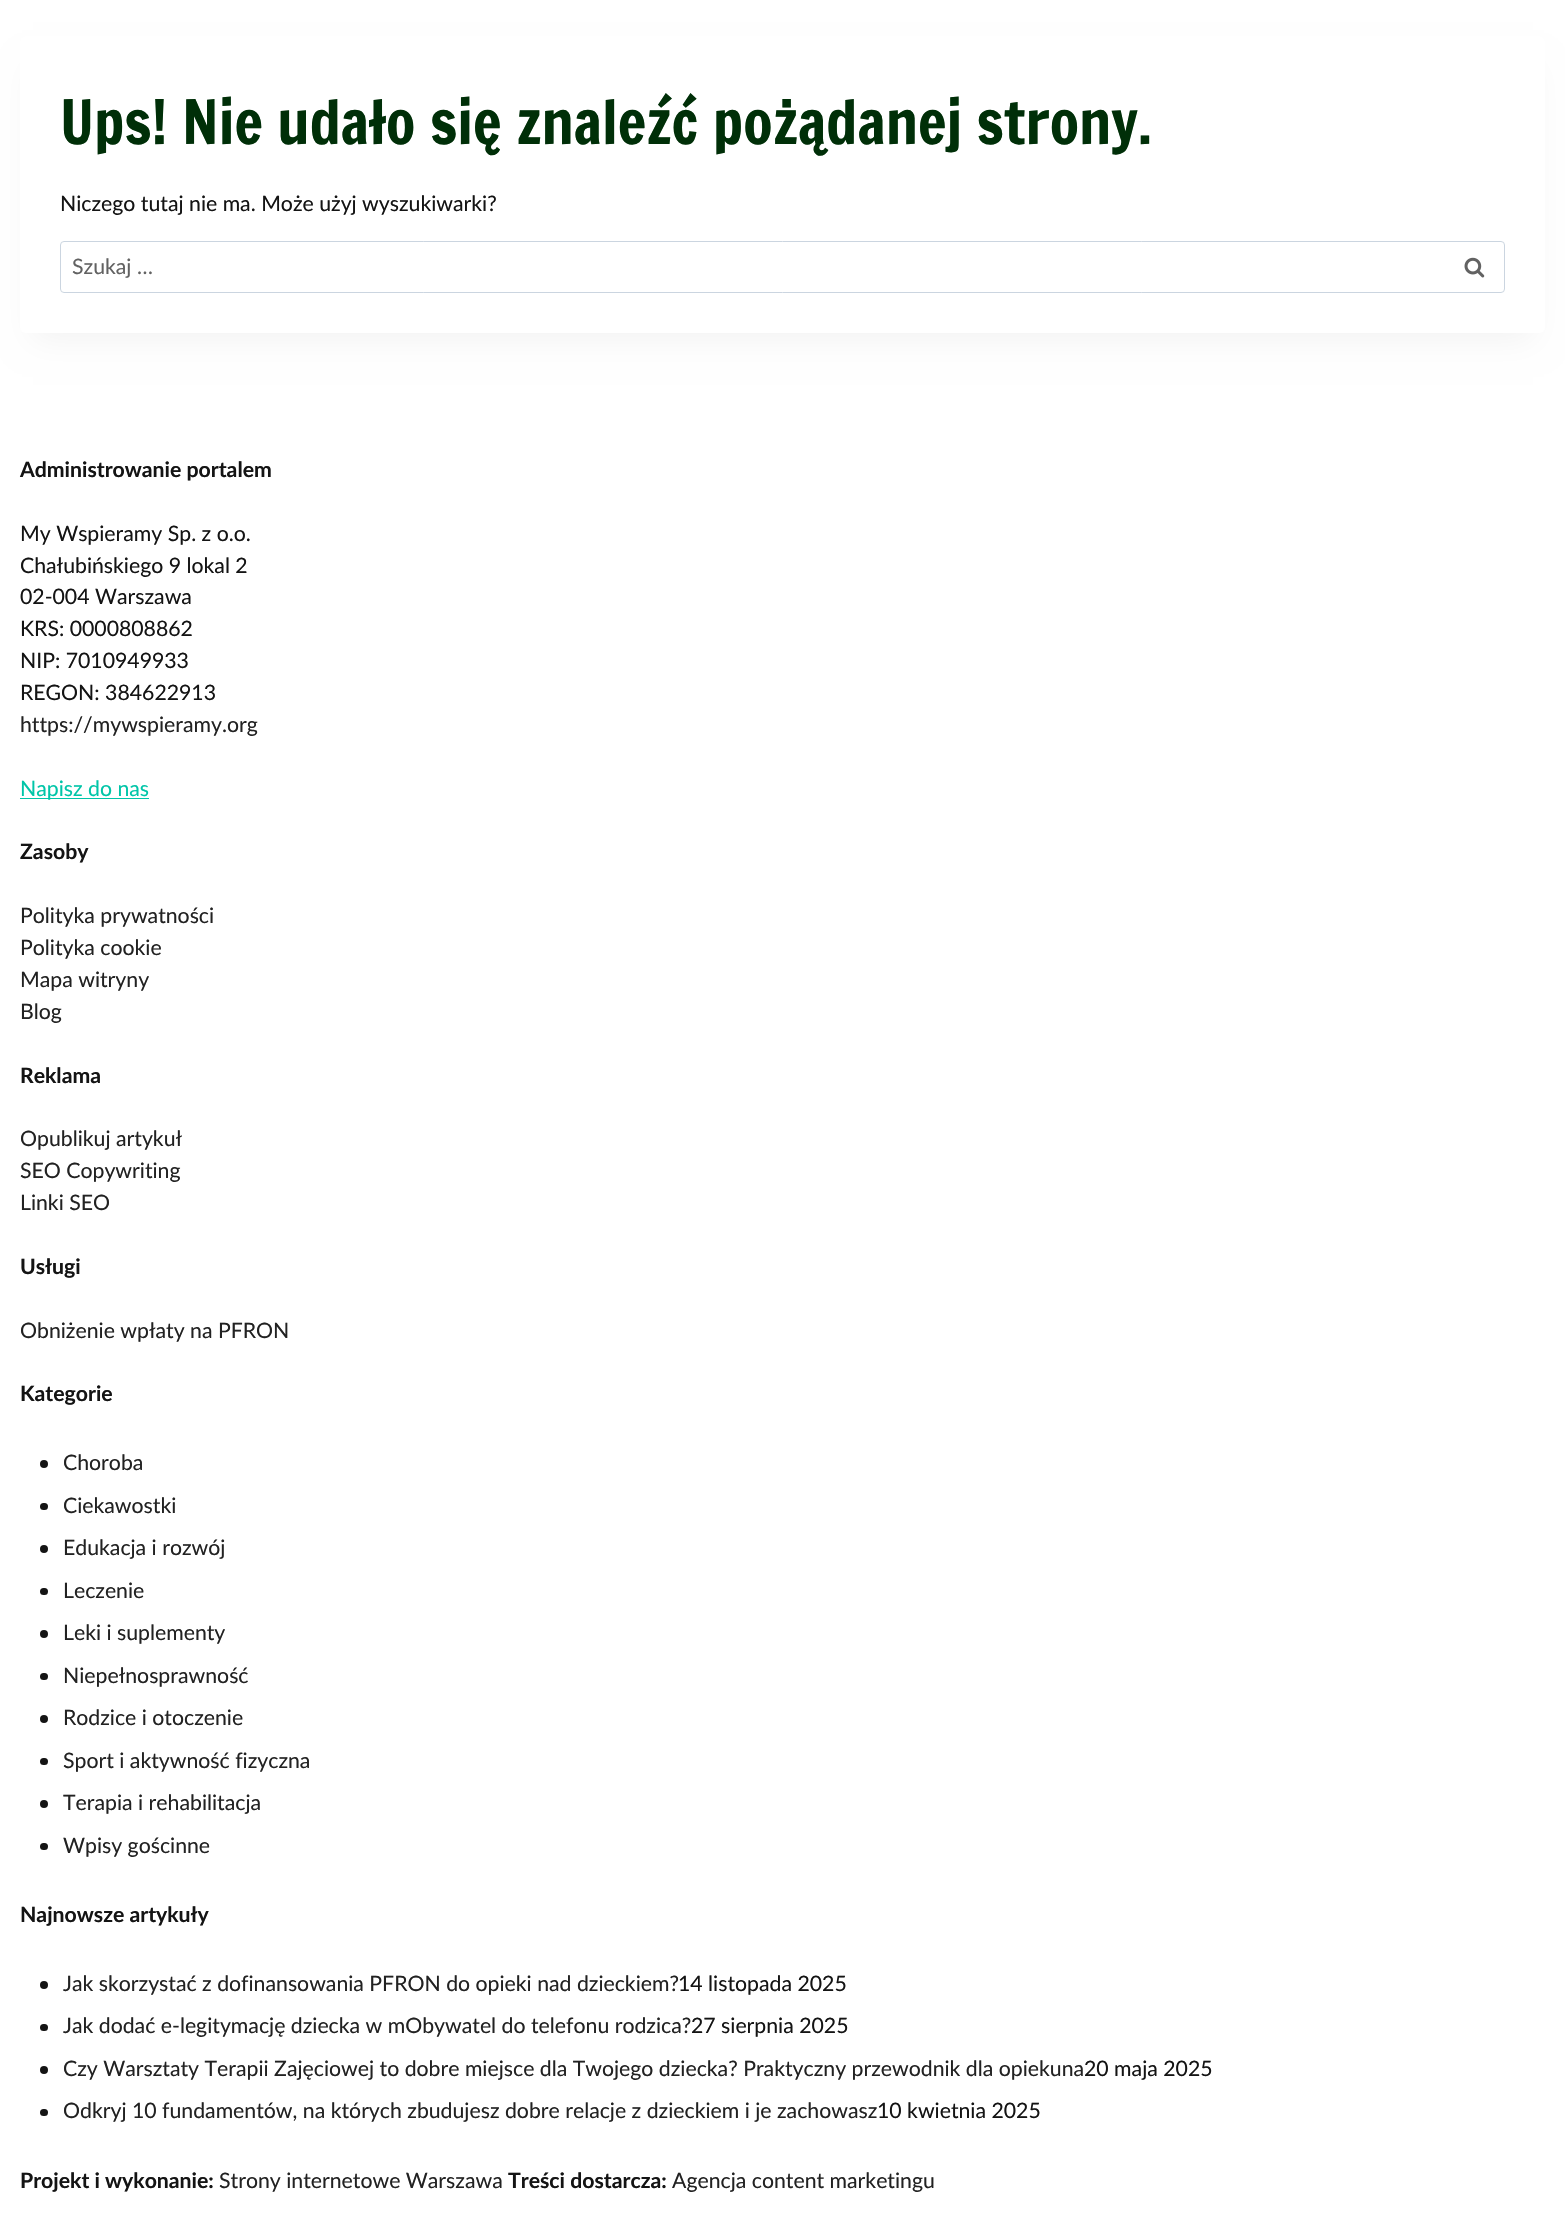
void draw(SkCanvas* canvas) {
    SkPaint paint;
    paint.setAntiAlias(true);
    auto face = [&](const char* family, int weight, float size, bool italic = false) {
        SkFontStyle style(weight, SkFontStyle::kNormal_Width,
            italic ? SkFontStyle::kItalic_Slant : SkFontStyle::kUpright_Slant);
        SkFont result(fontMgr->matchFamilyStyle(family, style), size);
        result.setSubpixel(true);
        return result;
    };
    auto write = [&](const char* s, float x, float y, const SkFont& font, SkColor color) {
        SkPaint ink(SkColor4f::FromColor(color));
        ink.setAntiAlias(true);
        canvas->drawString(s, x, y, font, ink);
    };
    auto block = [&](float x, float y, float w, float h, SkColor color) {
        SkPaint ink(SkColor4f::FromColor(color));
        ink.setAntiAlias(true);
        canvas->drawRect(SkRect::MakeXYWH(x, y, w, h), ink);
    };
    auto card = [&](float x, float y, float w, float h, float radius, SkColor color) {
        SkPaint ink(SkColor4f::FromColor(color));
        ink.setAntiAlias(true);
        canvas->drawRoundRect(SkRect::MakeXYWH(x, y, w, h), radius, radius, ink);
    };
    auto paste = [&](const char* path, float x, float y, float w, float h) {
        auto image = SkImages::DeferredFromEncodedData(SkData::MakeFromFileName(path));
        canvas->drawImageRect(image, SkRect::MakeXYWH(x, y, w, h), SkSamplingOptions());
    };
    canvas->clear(SK_ColorWHITE);
    paint.setColor(SkColorSetARGB(13, 0, 0, 0));
    paint.setMaskFilter(SkMaskFilter::MakeBlur(kNormal_SkBlurStyle, 15.5f));
    canvas->drawRect(SkRect::MakeXYWH(33, 68, 1500, 271), paint);
    paint.setMaskFilter(nullptr);
    card(20, 36, 1525, 297, 5, SK_ColorWHITE);
    auto kFont1 = face("Francois One", 400, 60);
    write("Ups! Nie udało się znaleźć pożądanej strony.", 60, 144, kFont1, SkColorSetRGB(0, 47, 8));
    auto kFont2 = face("Lato", 400, 21.25f);
    write("Niczego tutaj nie ma. Może użyj wyszukiwarki?", 60, 211, kFont2, SkColorSetRGB(20, 20, 20));
    paint.setStyle(SkPaint::kStroke_Style);
    paint.setStrokeWidth(1);
    paint.setColor(SkColorSetRGB(203, 213, 224));
    canvas->drawRoundRect(SkRect::MakeXYWH(60.5f, 241.5f, 1444, 51), 3.5f, 3.5f, paint);
    write("Szukaj …", 72, 274, kFont2, SkColorSetRGB(98, 98, 98));
    paste("pic1.png", 1464, 257, 21, 21);
    auto kFont3 = face("Lato", 700, 21.25f);
    write("Administrowanie portalem", 20, 477, kFont3, SkColorSetRGB(20, 20, 20));
    write("My Wspieramy Sp. z o.o.", 20, 541, kFont2, SkColorSetRGB(20, 20, 20));
    write("Chałubińskiego 9 lokal 2", 20, 573, kFont2, SkColorSetRGB(20, 20, 20));
    write("02-004 Warszawa", 20, 604, kFont2, SkColorSetRGB(20, 20, 20));
    write("KRS: 0000808862", 20, 636, kFont2, SkColorSetRGB(20, 20, 20));
    write("NIP: 7010949933", 20, 668, kFont2, SkColorSetRGB(20, 20, 20));
    write("REGON: 384622913", 20, 700, kFont2, SkColorSetRGB(20, 20, 20));
    write("https://mywspieramy.org", 20, 732, kFont2, SkColorSetRGB(34, 34, 34));
    block(20, 798, 129, 1, SkColorSetRGB(0, 197, 168));
    write("Napisz do nas", 20, 796, kFont2, SkColorSetRGB(0, 197, 168));
    write("Zasoby", 20, 859, kFont3, SkColorSetRGB(20, 20, 20));
    write("Polityka prywatności", 20, 923, kFont2, SkColorSetRGB(34, 34, 34));
    write("Polityka cookie", 20, 955, kFont2, SkColorSetRGB(34, 34, 34));
    write("Mapa witryny", 20, 987, kFont2, SkColorSetRGB(34, 34, 34));
    write("Blog", 20, 1019, kFont2, SkColorSetRGB(34, 34, 34));
    write("Reklama", 20, 1083, kFont3, SkColorSetRGB(20, 20, 20));
    write("Opublikuj artykuł", 20, 1146, kFont2, SkColorSetRGB(34, 34, 34));
    write("SEO Copywriting", 20, 1178, kFont2, SkColorSetRGB(34, 34, 34));
    write("Linki SEO", 20, 1210, kFont2, SkColorSetRGB(34, 34, 34));
    write("Usługi", 20, 1274, kFont3, SkColorSetRGB(20, 20, 20));
    write("Obniżenie wpłaty na PFRON", 20, 1338, kFont2, SkColorSetRGB(34, 34, 34));
    write("Kategorie", 20, 1401, kFont3, SkColorSetRGB(20, 20, 20));
    paint.setStyle(SkPaint::kFill_Style);
    paint.setColor(SkColorSetRGB(20, 20, 20));
    canvas->drawCircle(44, 1464, 4, paint);
    write("Choroba", 63, 1470, kFont2, SkColorSetRGB(34, 34, 34));
    card(40, 1503, 8, 7, 3.5f, SkColorSetRGB(20, 20, 20));
    write("Ciekawostki", 63, 1513, kFont2, SkColorSetRGB(34, 34, 34));
    canvas->drawCircle(44, 1549, 4, paint);
    write("Edukacja i rozwój", 63, 1555, kFont2, SkColorSetRGB(34, 34, 34));
    card(40, 1588, 8, 7, 3.5f, SkColorSetRGB(20, 20, 20));
    write("Leczenie", 63, 1598, kFont2, SkColorSetRGB(34, 34, 34));
    canvas->drawCircle(44, 1634, 4, paint);
    write("Leki i suplementy", 63, 1640, kFont2, SkColorSetRGB(34, 34, 34));
    card(40, 1673, 8, 7, 3.5f, SkColorSetRGB(20, 20, 20));
    write("Niepełnosprawność", 63, 1683, kFont2, SkColorSetRGB(34, 34, 34));
    canvas->drawCircle(44, 1719, 4, paint);
    write("Rodzice i otoczenie", 63, 1725, kFont2, SkColorSetRGB(34, 34, 34));
    card(40, 1758, 8, 7, 3.5f, SkColorSetRGB(20, 20, 20));
    write("Sport i aktywność fizyczna", 63, 1768, kFont2, SkColorSetRGB(34, 34, 34));
    canvas->drawCircle(44, 1804, 4, paint);
    write("Terapia i rehabilitacja", 63, 1810, kFont2, SkColorSetRGB(34, 34, 34));
    card(40, 1843, 8, 7, 3.5f, SkColorSetRGB(20, 20, 20));
    write("Wpisy gościnne", 63, 1853, kFont2, SkColorSetRGB(34, 34, 34));
    write("Najnowsze artykuły", 20, 1922, kFont3, SkColorSetRGB(20, 20, 20));
    canvas->drawCircle(44, 1985, 4, paint);
    write("Jak skorzystać z dofinansowania PFRON do opieki nad dzieckiem?", 63, 1991, kFont2, SkColorSetRGB(34, 34, 34));
    write("14 listopada 2025", 678, 1991, kFont2, SkColorSetRGB(20, 20, 20));
    card(40, 2024, 8, 7, 3.5f, SkColorSetRGB(20, 20, 20));
    write("Jak dodać e-legitymację dziecka w mObywatel do telefonu rodzica?", 63, 2033, kFont2, SkColorSetRGB(34, 34, 34));
    write("27 sierpnia 2025", 691, 2033, kFont2, SkColorSetRGB(20, 20, 20));
    canvas->drawCircle(44, 2070, 4, paint);
    write("Czy Warsztaty Terapii Zajęciowej to dobre miejsce dla Twojego dziecka? Praktyczny przewodnik dla opiekuna", 63, 2076, kFont2, SkColorSetRGB(34, 34, 34));
    write("20 maja 2025", 1084, 2076, kFont2, SkColorSetRGB(20, 20, 20));
    card(40, 2109, 8, 7, 3.5f, SkColorSetRGB(20, 20, 20));
    write("Odkryj 10 fundamentów, na których zbudujesz dobre relacje z dzieckiem i je zachowasz", 63, 2118, kFont2, SkColorSetRGB(34, 34, 34));
    write("10 kwietnia 2025", 877, 2118, kFont2, SkColorSetRGB(20, 20, 20));
    write("Projekt i wykonanie:", 20, 2188, kFont3, SkColorSetRGB(20, 20, 20));
    write("Strony internetowe Warszawa", 219, 2188, kFont2, SkColorSetRGB(34, 34, 34));
    write("Treści dostarcza:", 508, 2188, kFont3, SkColorSetRGB(20, 20, 20));
    write("Agencja content marketingu", 672, 2188, kFont2, SkColorSetRGB(34, 34, 34));
}
